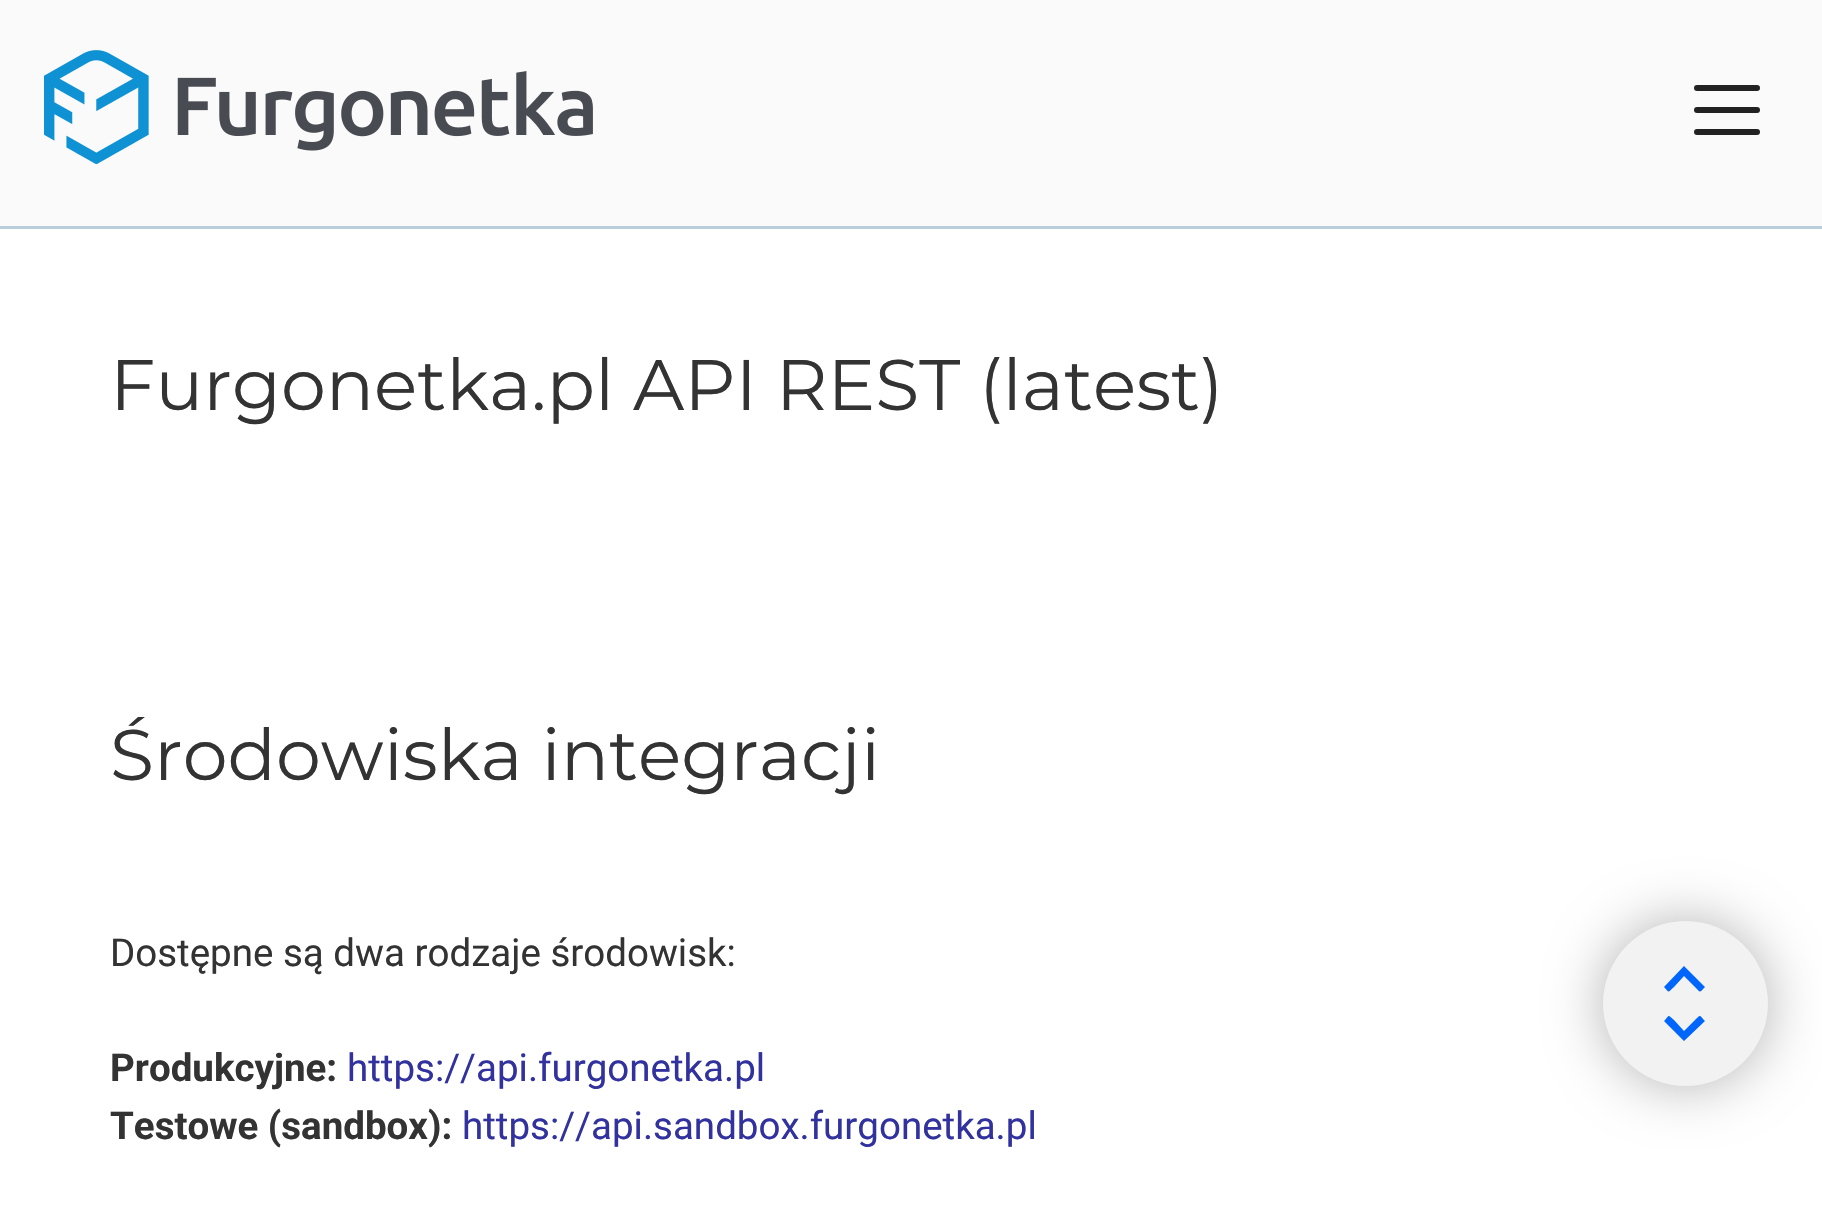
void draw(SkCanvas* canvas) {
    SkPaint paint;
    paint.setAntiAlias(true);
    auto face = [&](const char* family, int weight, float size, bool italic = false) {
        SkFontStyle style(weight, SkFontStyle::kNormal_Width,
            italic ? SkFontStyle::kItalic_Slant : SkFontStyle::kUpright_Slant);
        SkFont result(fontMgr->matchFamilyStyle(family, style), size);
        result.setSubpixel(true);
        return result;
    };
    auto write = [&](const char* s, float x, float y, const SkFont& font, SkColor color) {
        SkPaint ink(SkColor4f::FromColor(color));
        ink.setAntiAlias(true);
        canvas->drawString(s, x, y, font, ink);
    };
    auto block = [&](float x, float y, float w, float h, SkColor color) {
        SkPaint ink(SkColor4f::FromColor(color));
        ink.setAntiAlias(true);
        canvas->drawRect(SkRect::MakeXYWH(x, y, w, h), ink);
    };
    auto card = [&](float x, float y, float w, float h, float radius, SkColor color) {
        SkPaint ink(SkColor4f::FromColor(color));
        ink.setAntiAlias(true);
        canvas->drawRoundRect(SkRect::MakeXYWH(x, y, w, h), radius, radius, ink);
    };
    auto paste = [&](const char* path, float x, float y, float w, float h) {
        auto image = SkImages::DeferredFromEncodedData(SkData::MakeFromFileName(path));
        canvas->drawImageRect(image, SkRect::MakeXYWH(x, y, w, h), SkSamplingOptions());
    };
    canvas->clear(SK_ColorWHITE);
    block(0, 0, 1822, 226, SkColorSetRGB(250, 250, 250));
    block(0, 226, 1822, 3, SkColorSetRGB(186, 205, 219));
    paste("pic1.png", 44, 50, 549, 114);
    card(1694, 85, 66, 6, 3, SkColorSetRGB(34, 34, 34));
    card(1694, 129, 66, 6, 3, SkColorSetRGB(34, 34, 34));
    card(1694, 107, 66, 6, 3, SkColorSetRGB(34, 34, 34));
    auto kFont1 = face("Montserrat", 400, 71.5f);
    write("Furgonetka.pl API REST", 110, 410, kFont1, SkColorSetRGB(51, 51, 51));
    write("(latest)", 979, 410, kFont1, SkColorSetRGB(51, 51, 51));
    write("Środowiska integracji", 110, 780, kFont1, SkColorSetRGB(51, 51, 51));
    auto kFont2 = face("Roboto", 400, 38.5f);
    write("Dostępne są dwa rodzaje środowisk:", 110, 966, kFont2, SkColorSetRGB(51, 51, 51));
    auto kFont3 = face("Roboto", 700, 38.5f);
    write("Produkcyjne:", 110, 1081, kFont3, SkColorSetRGB(51, 51, 51));
    write("https://api.furgonetka.pl", 347, 1081, kFont2, SkColorSetRGB(50, 50, 159));
    write("Testowe (sandbox):", 110, 1139, kFont3, SkColorSetRGB(51, 51, 51));
    write("https://api.sandbox.furgonetka.pl", 462, 1139, kFont2, SkColorSetRGB(50, 50, 159));
    paint.setColor(SkColorSetARGB(77, 0, 0, 0));
    paint.setMaskFilter(SkMaskFilter::MakeBlur(kNormal_SkBlurStyle, 27.5f));
    canvas->drawRoundRect(SkRect::MakeXYWH(1603, 921, 165, 165), 82.5f, 82.5f, paint);
    paint.setMaskFilter(nullptr);
    paint.setColor(SkColorSetRGB(242, 242, 242));
    canvas->drawCircle(1685.5f, 1003.5f, 82.5f, paint);
    paint.setColor(SkColorSetRGB(0, 101, 251));
    canvas->drawPath(SkPathBuilder().moveTo(1695, 977).lineTo(1705, 987).cubicTo(1699, 993, 1701, 993, 1695, 987).lineTo(1684, 976).lineTo(1674, 987).cubicTo(1667, 993, 1670, 993, 1664, 987).lineTo(1684, 966).close().detach(), paint);
    canvas->drawPath(SkPathBuilder().moveTo(1674, 1031).lineTo(1664, 1021).cubicTo(1670, 1015, 1667, 1014, 1674, 1020).lineTo(1684, 1031).lineTo(1695, 1020).cubicTo(1701, 1014, 1699, 1015, 1705, 1021).lineTo(1684, 1041).close().detach(), paint);
}
